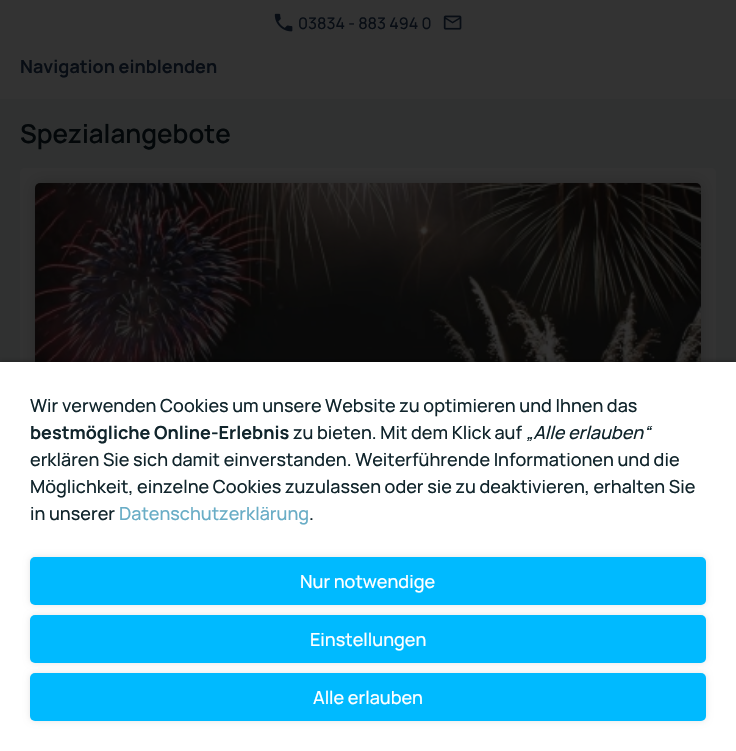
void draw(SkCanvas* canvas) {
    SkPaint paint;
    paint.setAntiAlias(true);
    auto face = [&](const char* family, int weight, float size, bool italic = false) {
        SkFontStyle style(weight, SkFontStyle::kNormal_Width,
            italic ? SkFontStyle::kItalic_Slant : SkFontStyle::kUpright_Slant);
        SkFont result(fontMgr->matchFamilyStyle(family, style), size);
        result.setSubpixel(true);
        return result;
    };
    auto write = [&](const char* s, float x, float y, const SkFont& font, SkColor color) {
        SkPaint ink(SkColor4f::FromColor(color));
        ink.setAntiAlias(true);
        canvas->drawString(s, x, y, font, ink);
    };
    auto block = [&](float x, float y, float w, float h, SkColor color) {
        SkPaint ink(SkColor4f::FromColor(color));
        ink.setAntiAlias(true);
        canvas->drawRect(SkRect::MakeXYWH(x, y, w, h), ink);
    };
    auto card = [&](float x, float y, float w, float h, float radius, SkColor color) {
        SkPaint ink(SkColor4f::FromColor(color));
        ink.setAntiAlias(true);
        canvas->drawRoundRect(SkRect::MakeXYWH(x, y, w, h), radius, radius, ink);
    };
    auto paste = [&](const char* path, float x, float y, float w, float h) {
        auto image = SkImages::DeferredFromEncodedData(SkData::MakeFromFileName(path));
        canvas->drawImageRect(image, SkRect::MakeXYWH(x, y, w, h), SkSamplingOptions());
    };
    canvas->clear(SkColorSetRGB(48, 49, 49));
    block(0, 0, 736, 99, SkColorSetRGB(51, 51, 51));
    paste("pic1.png", 274, 13, 19, 19);
    auto kFont1 = face("Manrope", 500, 16);
    write("03834 - 883 494 0", 298, 29, kFont1, SkColorSetRGB(8, 13, 20));
    paste("pic2.png", 443, 15, 19, 15);
    auto kFont2 = face("Manrope", 700, 18);
    write("Navigation einblenden", 20, 73, kFont2, SkColorSetRGB(8, 13, 20));
    auto kFont3 = face("Manrope", 600, 26);
    write("Spezialangebote", 20, 143, kFont3, SkColorSetRGB(3, 7, 9));
    card(20, 168, 696, 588, 5, SkColorSetRGB(51, 51, 51));
    paint.setColor(SkColorSetARGB(51, 0, 0, 0));
    paint.setMaskFilter(SkMaskFilter::MakeBlur(kNormal_SkBlurStyle, 7.5f));
    canvas->drawRoundRect(SkRect::MakeXYWH(35, 183, 666, 444), 5, 5, paint);
    paint.setMaskFilter(nullptr);
    paste("pic3.png", 35, 183, 666, 179);
    paint.setColor(SkColorSetARGB(102, 0, 0, 0));
    paint.setMaskFilter(SkMaskFilter::MakeBlur(kNormal_SkBlurStyle, 2.5f));
    canvas->drawRect(SkRect::MakeXYWH(0, 362, 736, 389), paint);
    paint.setMaskFilter(nullptr);
    block(0, 362, 736, 389, SK_ColorWHITE);
    auto kFont4 = face("Manrope", 500, 18);
    write("Wir verwenden Cookies um unsere Website zu optimieren und Ihnen das", 30, 412, kFont4, SkColorSetRGB(17, 37, 44));
    write("bestmögliche Online-Erlebnis", 30, 439, kFont2, SkColorSetRGB(17, 37, 44));
    write("zu bieten. Mit dem Klick auf", 293, 439, kFont4, SkColorSetRGB(17, 37, 44));
    auto kFont5 = face("Manrope", 500, 18, true);
    write("„Alle erlauben“", 526, 439, kFont5, SkColorSetRGB(17, 37, 44));
    write("erklären Sie sich damit einverstanden. Weiterführende Informationen und die", 30, 466, kFont4, SkColorSetRGB(17, 37, 44));
    write("Möglichkeit, einzelne Cookies zuzulassen oder sie zu deaktivieren, erhalten Sie", 30, 493, kFont4, SkColorSetRGB(17, 37, 44));
    write("in unserer", 30, 520, kFont4, SkColorSetRGB(17, 37, 44));
    write("Datenschutzerklärung", 119, 520, kFont4, SkColorSetRGB(105, 173, 198));
    write(".", 309, 520, kFont4, SkColorSetRGB(17, 37, 44));
    paint.setColor(SkColorSetARGB(26, 0, 0, 0));
    paint.setMaskFilter(SkMaskFilter::MakeBlur(kNormal_SkBlurStyle, 3));
    canvas->drawRoundRect(SkRect::MakeXYWH(30, 557, 676, 48), 5, 5, paint);
    paint.setMaskFilter(nullptr);
    card(30, 557, 676, 48, 5, SkColorSetRGB(0, 186, 255));
    write("Nur notwendige", 300, 588, kFont4, SK_ColorWHITE);
    paint.setMaskFilter(SkMaskFilter::MakeBlur(kNormal_SkBlurStyle, 3));
    canvas->drawRoundRect(SkRect::MakeXYWH(30, 615, 676, 48), 5, 5, paint);
    paint.setMaskFilter(nullptr);
    card(30, 615, 676, 48, 5, SkColorSetRGB(0, 186, 255));
    write("Einstellungen", 310, 646, kFont4, SK_ColorWHITE);
    paint.setMaskFilter(SkMaskFilter::MakeBlur(kNormal_SkBlurStyle, 3));
    canvas->drawRoundRect(SkRect::MakeXYWH(30, 673, 676, 48), 5, 5, paint);
    paint.setMaskFilter(nullptr);
    card(30, 673, 676, 48, 5, SkColorSetRGB(0, 186, 255));
    write("Alle erlauben", 313, 704, kFont4, SK_ColorWHITE);
}
